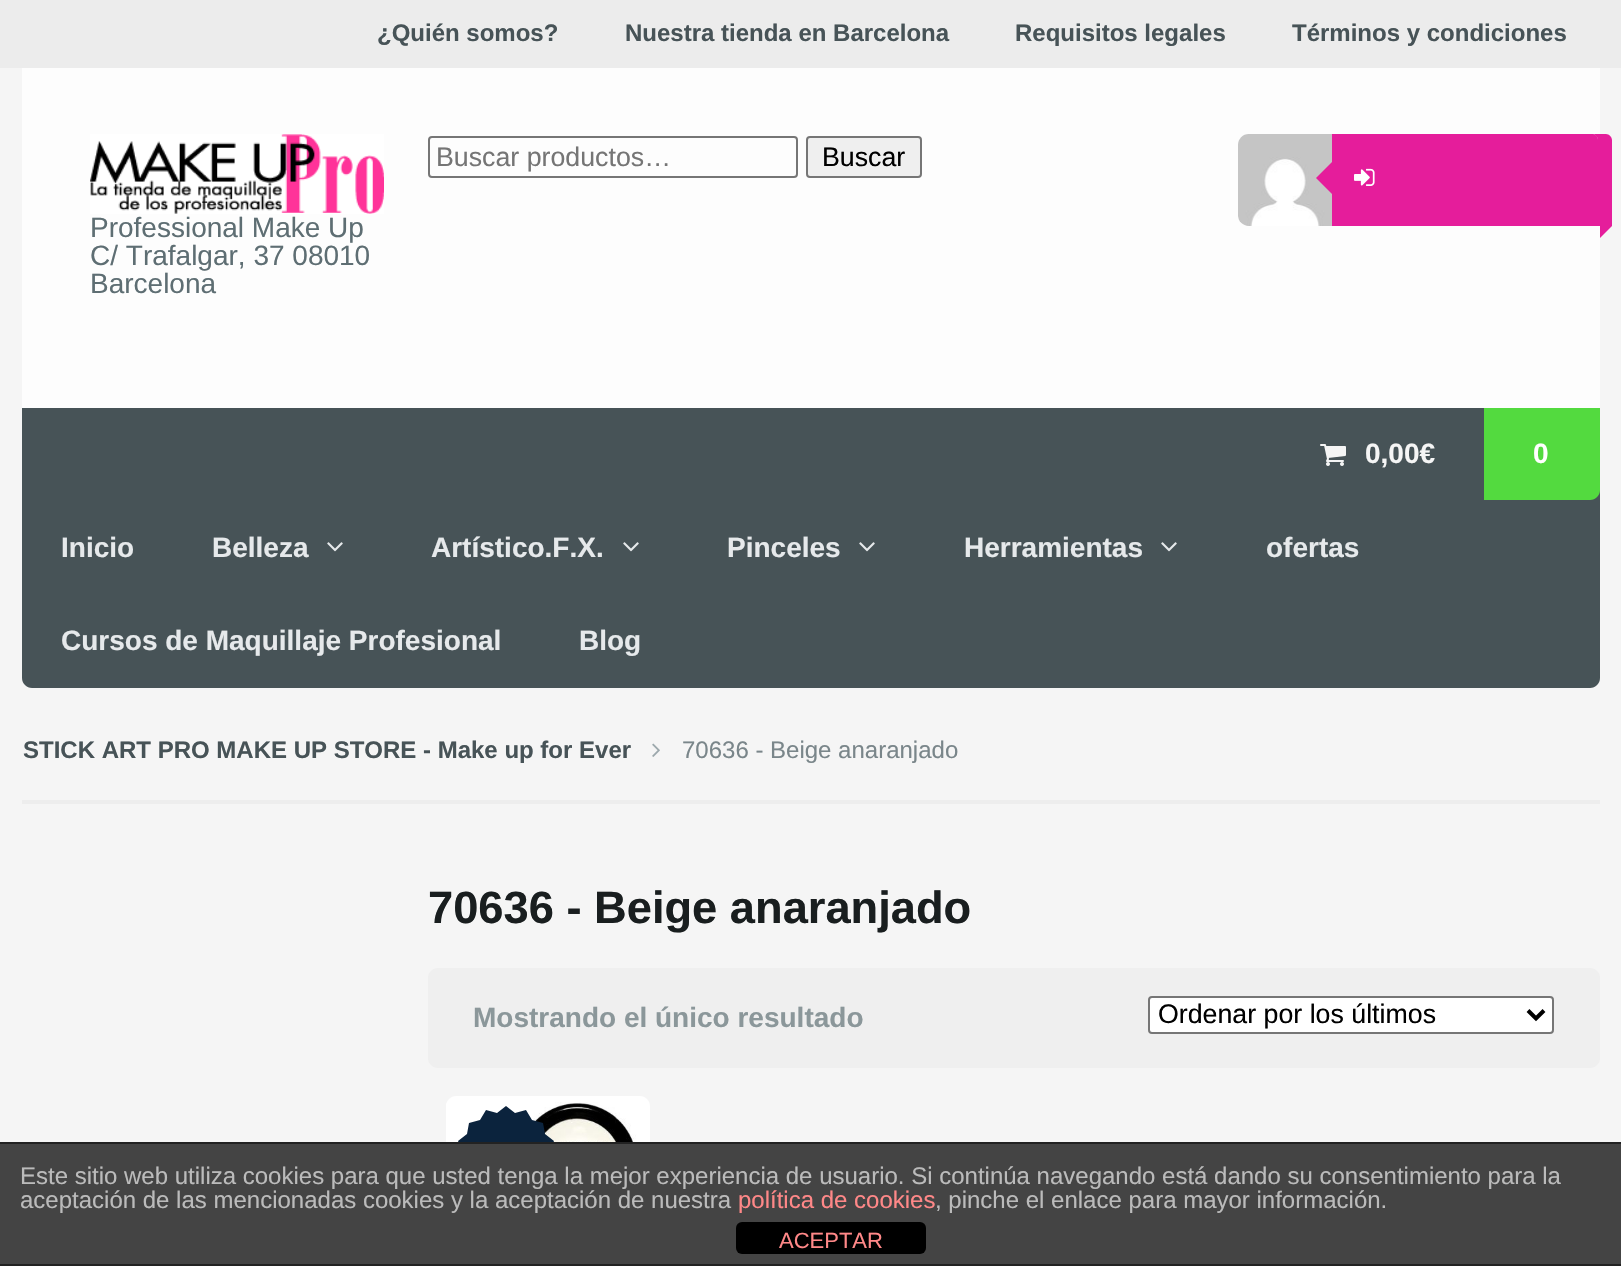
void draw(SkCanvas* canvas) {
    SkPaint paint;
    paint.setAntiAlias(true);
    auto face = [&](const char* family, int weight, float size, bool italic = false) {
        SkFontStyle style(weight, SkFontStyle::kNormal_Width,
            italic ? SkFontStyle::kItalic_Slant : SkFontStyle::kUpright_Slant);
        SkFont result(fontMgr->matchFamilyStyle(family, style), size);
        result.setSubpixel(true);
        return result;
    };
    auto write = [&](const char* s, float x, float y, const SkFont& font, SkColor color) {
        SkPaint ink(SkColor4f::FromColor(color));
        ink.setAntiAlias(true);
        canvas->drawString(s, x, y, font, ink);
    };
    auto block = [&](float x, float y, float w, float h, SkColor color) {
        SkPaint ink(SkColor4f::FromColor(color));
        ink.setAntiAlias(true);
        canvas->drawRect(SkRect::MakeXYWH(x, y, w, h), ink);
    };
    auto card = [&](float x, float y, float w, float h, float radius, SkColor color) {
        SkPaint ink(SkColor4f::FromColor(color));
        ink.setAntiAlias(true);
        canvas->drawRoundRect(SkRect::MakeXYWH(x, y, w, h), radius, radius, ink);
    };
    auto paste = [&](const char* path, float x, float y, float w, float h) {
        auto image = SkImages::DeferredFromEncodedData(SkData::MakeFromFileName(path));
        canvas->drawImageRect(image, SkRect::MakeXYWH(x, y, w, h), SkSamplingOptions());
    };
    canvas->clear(SkColorSetRGB(245, 245, 245));
    block(0, 0, 1621, 68, SkColorSetRGB(236, 236, 236));
    auto kFont1 = face("Liberation Sans", 700, 24);
    write("¿Quién somos?", 377, 41, kFont1, SkColorSetRGB(71, 83, 87));
    write("Nuestra tienda en Barcelona", 625, 41, kFont1, SkColorSetRGB(71, 83, 87));
    write("Requisitos legales", 1015, 41, kFont1, SkColorSetRGB(71, 83, 87));
    write("Términos y condiciones", 1292, 41, kFont1, SkColorSetRGB(71, 83, 87));
    block(22, 68, 1578, 340, SkColorSetRGB(253, 253, 253));
    paint.setStyle(SkPaint::kStroke_Style);
    paint.setStrokeWidth(2);
    paint.setColor(SkColorSetRGB(118, 118, 118));
    canvas->drawRoundRect(SkRect::MakeXYWH(429, 137, 368, 40), 3, 3, paint);
    auto kFont2 = face("Liberation Sans", 400, 26.75f);
    write("Buscar productos…", 436, 166, kFont2, SkColorSetRGB(117, 117, 117));
    paint.setStyle(SkPaint::kFill_Style);
    paint.setColor(SkColorSetRGB(239, 239, 239));
    canvas->drawRoundRect(SkRect::MakeXYWH(807, 137, 114, 40), 3, 3, paint);
    paint.setStyle(SkPaint::kStroke_Style);
    paint.setColor(SkColorSetRGB(118, 118, 118));
    canvas->drawRoundRect(SkRect::MakeXYWH(807, 137, 114, 40), 3, 3, paint);
    write("Buscar", 822, 166, kFont2, SK_ColorBLACK);
    paste("pic1.png", 1238, 134, 94, 92);
    paint.setStyle(SkPaint::kFill_Style);
    paint.setColor(SkColorSetRGB(229, 29, 155));
    canvas->drawPath(SkPathBuilder().moveTo(1332, 162).lineTo(1332, 194).lineTo(1316, 178).close().detach(), paint);
    canvas->drawPath(SkPathBuilder().moveTo(1598, 226).lineTo(1612, 226).lineTo(1612, 140).cubicTo(1612, 137, 1609, 134, 1606, 134).lineTo(1592, 134).cubicTo(1595, 134, 1598, 137, 1598, 140).close().detach(), paint);
    canvas->drawPath(SkPathBuilder().moveTo(1332, 134).lineTo(1592, 134).cubicTo(1595.5f, 134, 1598, 136.5f, 1598, 140).lineTo(1598, 226).lineTo(1332, 226).close().detach(), paint);
    paste("pic2.png", 1354, 168, 21, 18);
    canvas->drawPath(SkPathBuilder().moveTo(1600, 226).lineTo(1612, 226).lineTo(1600, 238).close().detach(), paint);
    paste("pic3.png", 90, 134, 294, 80);
    auto kFont3 = face("Liberation Sans", 400, 28);
    write("Professional Make Up", 90, 237, kFont3, SkColorSetRGB(94, 110, 115));
    write("C/ Trafalgar, 37 08010", 90, 265, kFont3, SkColorSetRGB(94, 110, 115));
    write("Barcelona", 90, 293, kFont3, SkColorSetRGB(94, 110, 115));
    paint.setColor(SkColorSetRGB(71, 83, 87));
    canvas->drawPath(SkPathBuilder().moveTo(22, 408).lineTo(1600, 408).lineTo(1600, 678).cubicTo(1600, 683.5f, 1595.5f, 688, 1590, 688).lineTo(32, 688).cubicTo(26.5f, 688, 22, 683.5f, 22, 678).close().detach(), paint);
    paste("pic4.png", 1320, 444, 26, 22);
    auto kFont4 = face("Liberation Sans", 700, 28);
    write("0,00€", 1365, 463, kFont4, SkColorSetRGB(245, 245, 245));
    paint.setColor(SkColorSetRGB(83, 218, 63));
    canvas->drawPath(SkPathBuilder().moveTo(1484, 408).lineTo(1600, 408).lineTo(1600, 490).cubicTo(1600, 495.5f, 1595.5f, 500, 1590, 500).lineTo(1484, 500).close().detach(), paint);
    write("0", 1533, 463, kFont4, SK_ColorWHITE);
    write("Inicio", 61, 557, kFont4, SkColorSetRGB(230, 233, 235));
    write("Belleza", 212, 557, kFont4, SkColorSetRGB(230, 233, 235));
    paste("pic5.png", 327, 542, 16, 10);
    write("Artístico.F.X.", 431, 557, kFont4, SkColorSetRGB(230, 233, 235));
    paste("pic5.png", 623, 542, 16, 10);
    write("Pinceles", 727, 557, kFont4, SkColorSetRGB(230, 233, 235));
    paste("pic5.png", 859, 542, 16, 10);
    write("Herramientas", 964, 557, kFont4, SkColorSetRGB(230, 233, 235));
    paste("pic5.png", 1161, 542, 16, 10);
    write("ofertas", 1266, 557, kFont4, SkColorSetRGB(230, 233, 235));
    write("Cursos de Maquillaje Profesional", 61, 650, kFont4, SkColorSetRGB(230, 233, 235));
    write("Blog", 579, 650, kFont4, SkColorSetRGB(230, 233, 235));
    block(22, 800, 1578, 4, SkColorSetRGB(237, 237, 237));
    write("STICK ART PRO MAKE UP STORE - Make up for Ever", 23, 758, kFont1, SkColorSetRGB(71, 83, 87));
    paste("pic6.png", 652, 743, 8, 14);
    auto kFont5 = face("Liberation Sans", 400, 24);
    write("70636 - Beige anaranjado", 682, 758, kFont5, SkColorSetRGB(122, 134, 138));
    auto kFont6 = face("Liberation Sans", 700, 45.25f);
    write("70636 - Beige anaranjado", 428, 923, kFont6, SkColorSetRGB(25, 30, 31));
    paint.setColor(SkColorSetRGB(239, 239, 239));
    canvas->drawPath(SkPathBuilder().moveTo(438, 968).lineTo(1014, 968).lineTo(1014, 1068).lineTo(438, 1068).cubicTo(432.5f, 1068, 428, 1063.5f, 428, 1058).lineTo(428, 978).cubicTo(428, 972.5f, 432.5f, 968, 438, 968).close().detach(), paint);
    write("Mostrando el único resultado", 473, 1027, kFont4, SkColorSetRGB(139, 151, 154));
    canvas->drawPath(SkPathBuilder().moveTo(1014, 968).lineTo(1590, 968).cubicTo(1595.5f, 968, 1600, 972.5f, 1600, 978).lineTo(1600, 1058).cubicTo(1600, 1063.5f, 1595.5f, 1068, 1590, 1068).lineTo(1014, 1068).close().detach(), paint);
    paint.setColor(SK_ColorWHITE);
    canvas->drawRoundRect(SkRect::MakeXYWH(1149, 997, 404, 36), 3, 3, paint);
    paint.setStyle(SkPaint::kStroke_Style);
    paint.setColor(SkColorSetRGB(118, 118, 118));
    canvas->drawRoundRect(SkRect::MakeXYWH(1149, 997, 404, 36), 3, 3, paint);
    paint.setStrokeWidth(4);
    paint.setColor(SK_ColorBLACK);
    canvas->drawPath(SkPathBuilder().moveTo(1528, 1010.5f).lineTo(1536, 1018.5f).lineTo(1544, 1010.5f).detach(), paint);
    write("Ordenar por los últimos", 1158, 1023, kFont2, SK_ColorBLACK);
    paint.setStyle(SkPaint::kFill_Style);
    paint.setColor(SK_ColorWHITE);
    canvas->drawPath(SkPathBuilder().moveTo(456, 1096).lineTo(640, 1096).cubicTo(645.5f, 1096, 650, 1100.5f, 650, 1106).lineTo(650, 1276).lineTo(446, 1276).lineTo(446, 1106).cubicTo(446, 1100.5f, 450.5f, 1096, 456, 1096).close().detach(), paint);
    paste("pic7.png", 446, 1102, 192, 40);
    paint.setColor(SkColorSetRGB(11, 35, 61));
    canvas->drawPath(SkPathBuilder(SkPathFillType::kEvenOdd).moveTo(543, 1123).lineTo(545, 1134).lineTo(554, 1141).lineTo(550, 1152).lineTo(556, 1162).lineTo(548, 1170).lineTo(550, 1182).lineTo(539, 1187).lineTo(536, 1197).lineTo(524, 1197).lineTo(516, 1206).lineTo(506, 1201).lineTo(496, 1206).lineTo(488, 1197).lineTo(476, 1197).lineTo(473, 1187).lineTo(462, 1182).lineTo(464, 1170).lineTo(456, 1162).lineTo(462, 1152).lineTo(458, 1141).lineTo(467, 1134).lineTo(469, 1123).lineTo(480, 1120).lineTo(486, 1110).lineTo(497, 1113).lineTo(506, 1106).lineTo(515, 1113).lineTo(526, 1110).lineTo(532, 1120).close().detach(), paint);
    block(0, 1144, 1621, 120, SkColorSetRGB(68, 68, 68));
    block(0, 1142, 1621, 2, SkColorSetRGB(34, 34, 34));
    block(0, 1264, 1621, 2, SkColorSetRGB(34, 34, 34));
    write("Este sitio web utiliza cookies para que usted tenga la mejor experiencia de usuario. Si continúa navegando está dando su consentimiento para la", 20, 1184, kFont5, SkColorSetRGB(187, 187, 187));
    write("aceptación de las mencionadas cookies y la aceptación de nuestra", 20, 1208, kFont5, SkColorSetRGB(187, 187, 187));
    write("política de cookies", 738, 1208, kFont5, SkColorSetRGB(255, 136, 136));
    write(", pinche el enlace para mayor información.", 935, 1208, kFont5, SkColorSetRGB(187, 187, 187));
    card(736, 1222, 190, 32, 6, SK_ColorBLACK);
    auto kFont7 = face("Liberation Sans", 400, 22);
    write("ACEPTAR", 779, 1248, kFont7, SkColorSetRGB(255, 136, 136));
}
